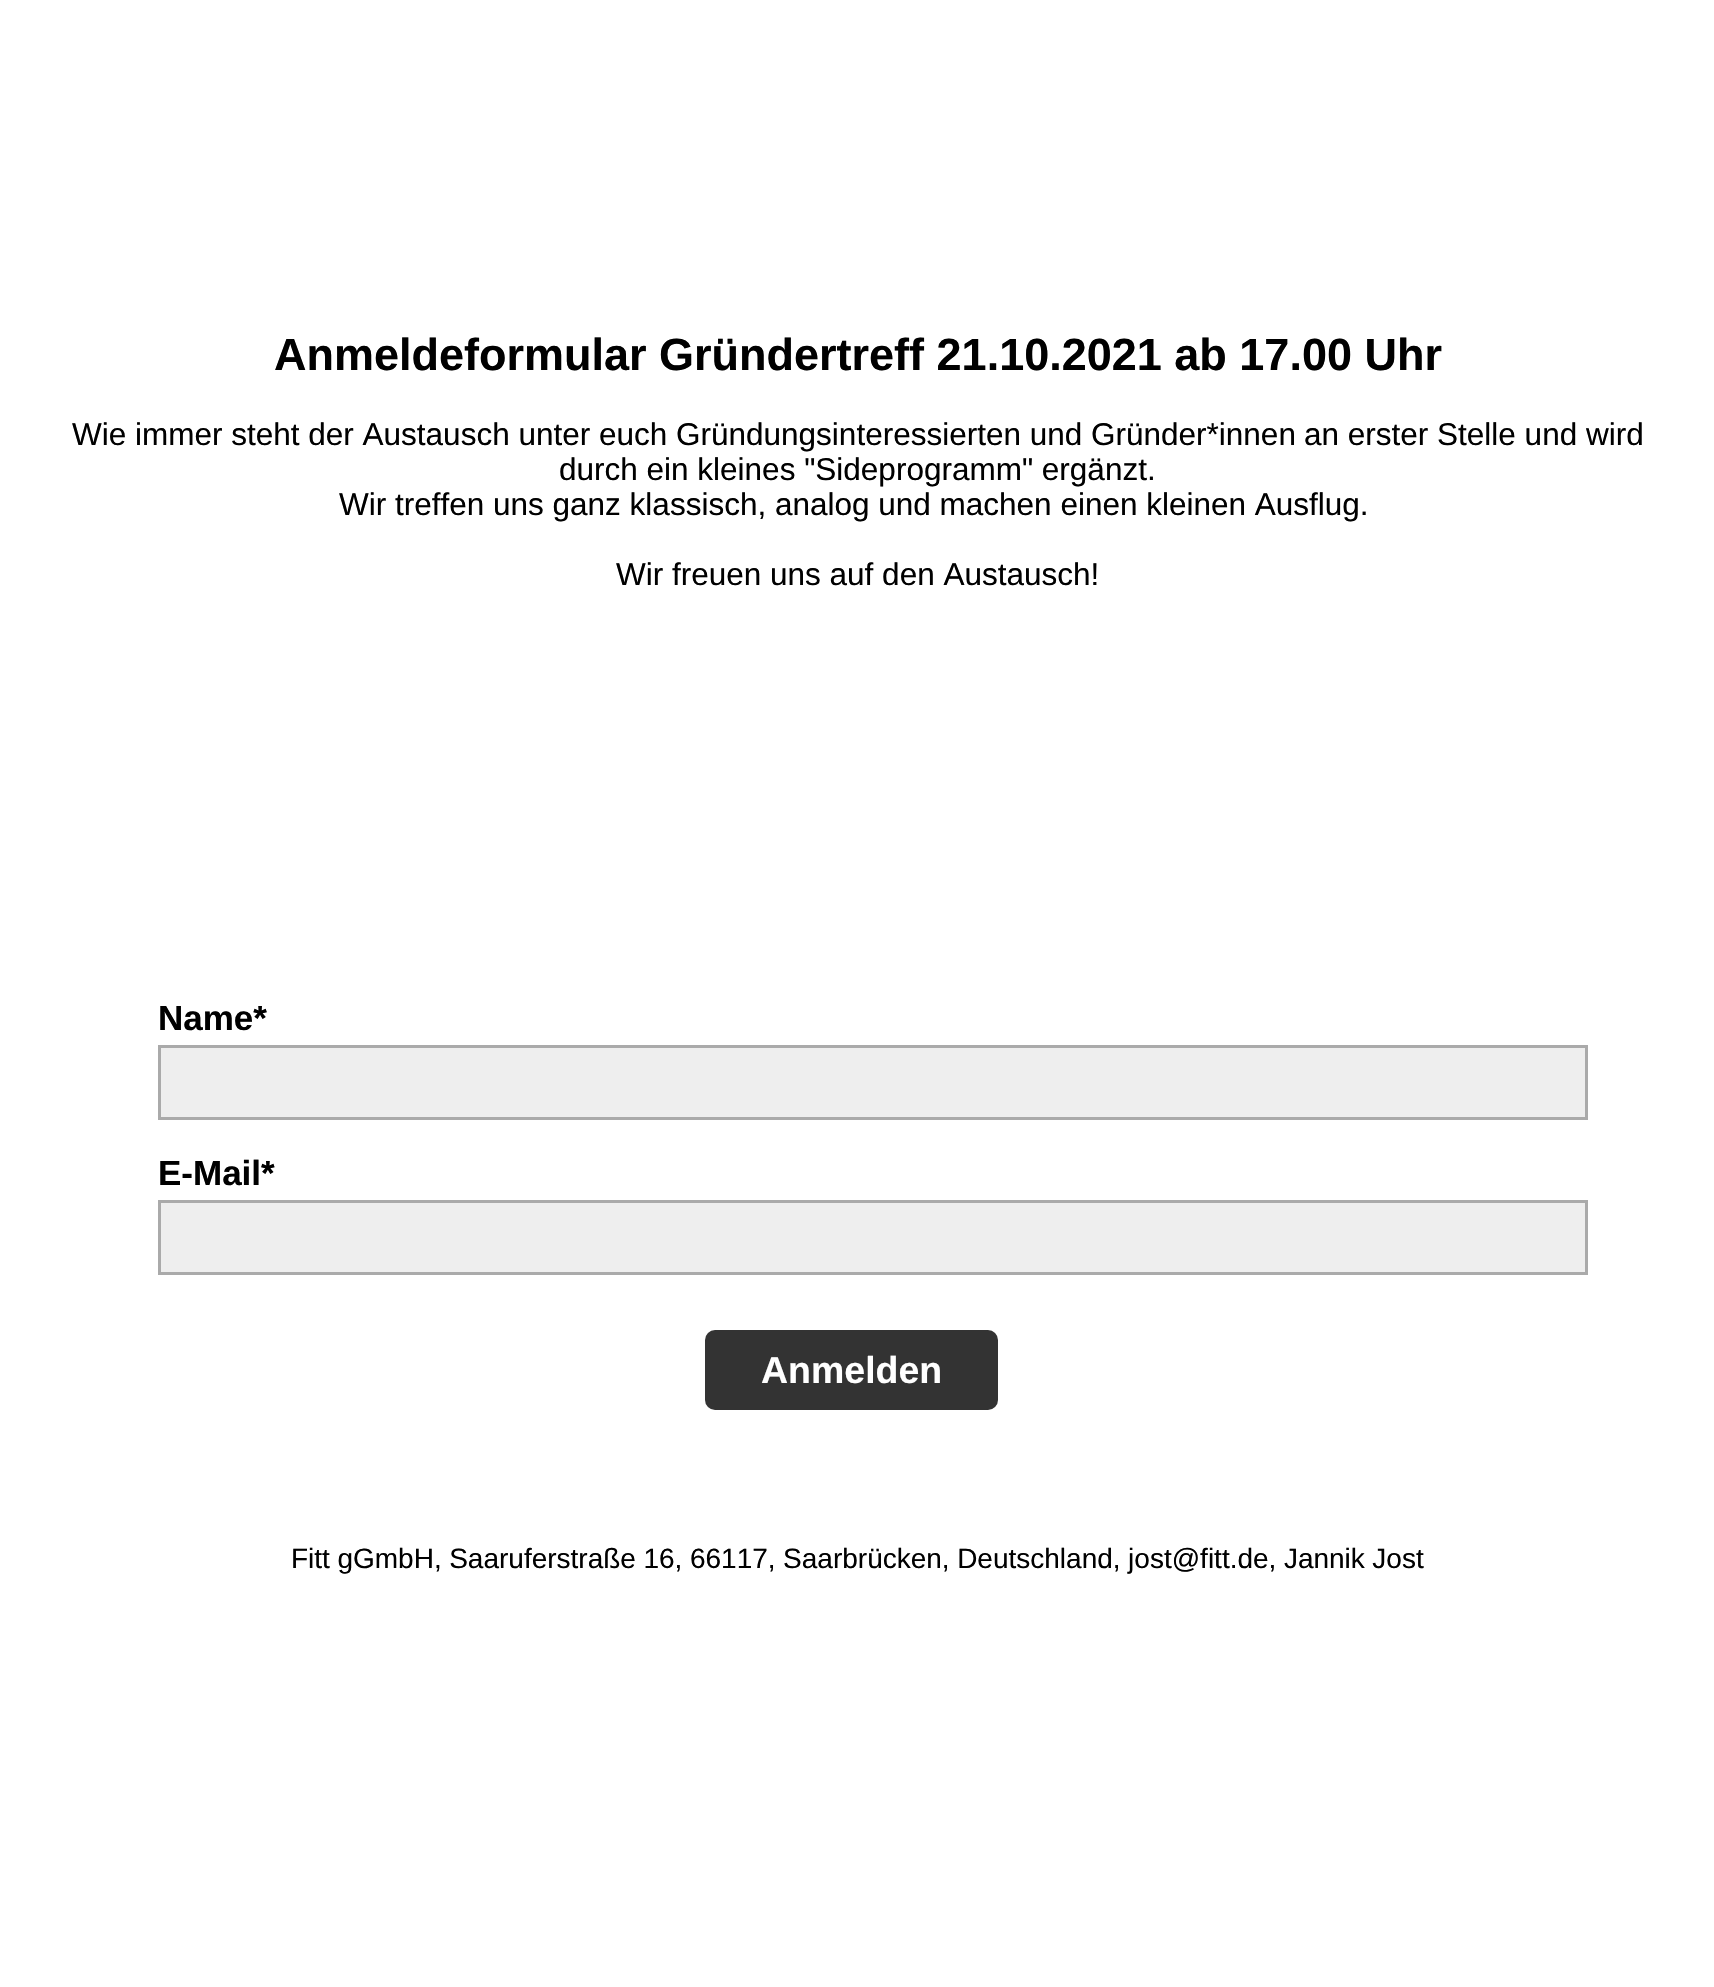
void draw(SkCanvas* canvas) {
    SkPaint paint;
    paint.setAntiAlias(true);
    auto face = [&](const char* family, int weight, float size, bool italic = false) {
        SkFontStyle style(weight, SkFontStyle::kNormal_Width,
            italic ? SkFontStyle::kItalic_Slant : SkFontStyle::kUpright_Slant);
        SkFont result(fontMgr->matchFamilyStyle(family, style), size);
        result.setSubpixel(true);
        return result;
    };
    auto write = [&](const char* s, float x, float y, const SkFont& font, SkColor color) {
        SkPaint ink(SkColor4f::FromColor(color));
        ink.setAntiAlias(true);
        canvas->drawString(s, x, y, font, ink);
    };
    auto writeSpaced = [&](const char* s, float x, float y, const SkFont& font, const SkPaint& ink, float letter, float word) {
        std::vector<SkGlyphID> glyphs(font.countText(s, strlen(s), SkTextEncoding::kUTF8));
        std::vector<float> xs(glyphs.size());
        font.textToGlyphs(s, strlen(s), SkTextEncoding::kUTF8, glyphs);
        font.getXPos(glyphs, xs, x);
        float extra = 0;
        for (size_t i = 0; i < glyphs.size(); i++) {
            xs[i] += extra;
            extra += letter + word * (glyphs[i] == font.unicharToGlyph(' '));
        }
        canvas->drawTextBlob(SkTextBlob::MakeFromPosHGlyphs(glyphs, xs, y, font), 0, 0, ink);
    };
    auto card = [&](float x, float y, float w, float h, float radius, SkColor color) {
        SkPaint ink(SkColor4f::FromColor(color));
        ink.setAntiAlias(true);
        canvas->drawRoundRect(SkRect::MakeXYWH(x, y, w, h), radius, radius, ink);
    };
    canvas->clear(SK_ColorWHITE);
    auto kFont1 = face("Liberation Sans", 700, 45);
    write("Anmeldeformular Gründertreff 21.10.2021 ab 17.00 Uhr", 274, 370, kFont1, SK_ColorBLACK);
    auto kFont2 = face("Liberation Sans", 400, 31.5f);
    write("Wie immer steht der Austausch unter euch Gründungsinteressierten und Gründer*innen", 72, 445, kFont2, SK_ColorBLACK);
    write("an erster Stelle und wird", 1304, 445, kFont2, SK_ColorBLACK);
    write("durch ein kleines \"Sideprogramm\" ergänzt.", 559, 480, kFont2, SK_ColorBLACK);
    write("Wir treffen uns ganz klassisch, analog und machen einen kleinen Ausflug.", 339, 515, kFont2, SK_ColorBLACK);
    write("Wir freuen uns auf den Austausch!", 616, 585, kFont2, SK_ColorBLACK);
    auto kFont3 = face("Liberation Sans", 700, 35);
    write("Name*", 158, 1030, kFont3, SK_ColorBLACK);
    paint.setColor(SkColorSetRGB(238, 238, 238));
    canvas->drawRect(SkRect::MakeXYWH(159.5f, 1046.5f, 1427, 72), paint);
    paint.setStyle(SkPaint::kStroke_Style);
    paint.setStrokeWidth(3);
    paint.setColor(SkColorSetRGB(170, 170, 170));
    canvas->drawRect(SkRect::MakeXYWH(159.5f, 1046.5f, 1427, 72), paint);
    write("E-Mail*", 158, 1185, kFont3, SK_ColorBLACK);
    paint.setStyle(SkPaint::kFill_Style);
    paint.setColor(SkColorSetRGB(238, 238, 238));
    canvas->drawRect(SkRect::MakeXYWH(159.5f, 1201.5f, 1427, 72), paint);
    paint.setStyle(SkPaint::kStroke_Style);
    paint.setColor(SkColorSetRGB(170, 170, 170));
    canvas->drawRect(SkRect::MakeXYWH(159.5f, 1201.5f, 1427, 72), paint);
    card(705, 1330, 293, 80, 10, SkColorSetRGB(51, 51, 51));
    auto kFont4 = face("Liberation Sans", 700, 37.5f);
    write("Anmelden", 761, 1383, kFont4, SK_ColorWHITE);
    auto kFont5 = face("Liberation Sans", 400, 28);
    paint.setStyle(SkPaint::kFill_Style);
    paint.setColor(SK_ColorBLACK);
    writeSpaced("Fitt gGmbH, Saaruferstraße 16, 66117, Saarbrücken, Deutschland, jost@fitt.de, Jannik Jost", 291, 1568, kFont5, paint, 0, -0.25f);
}
